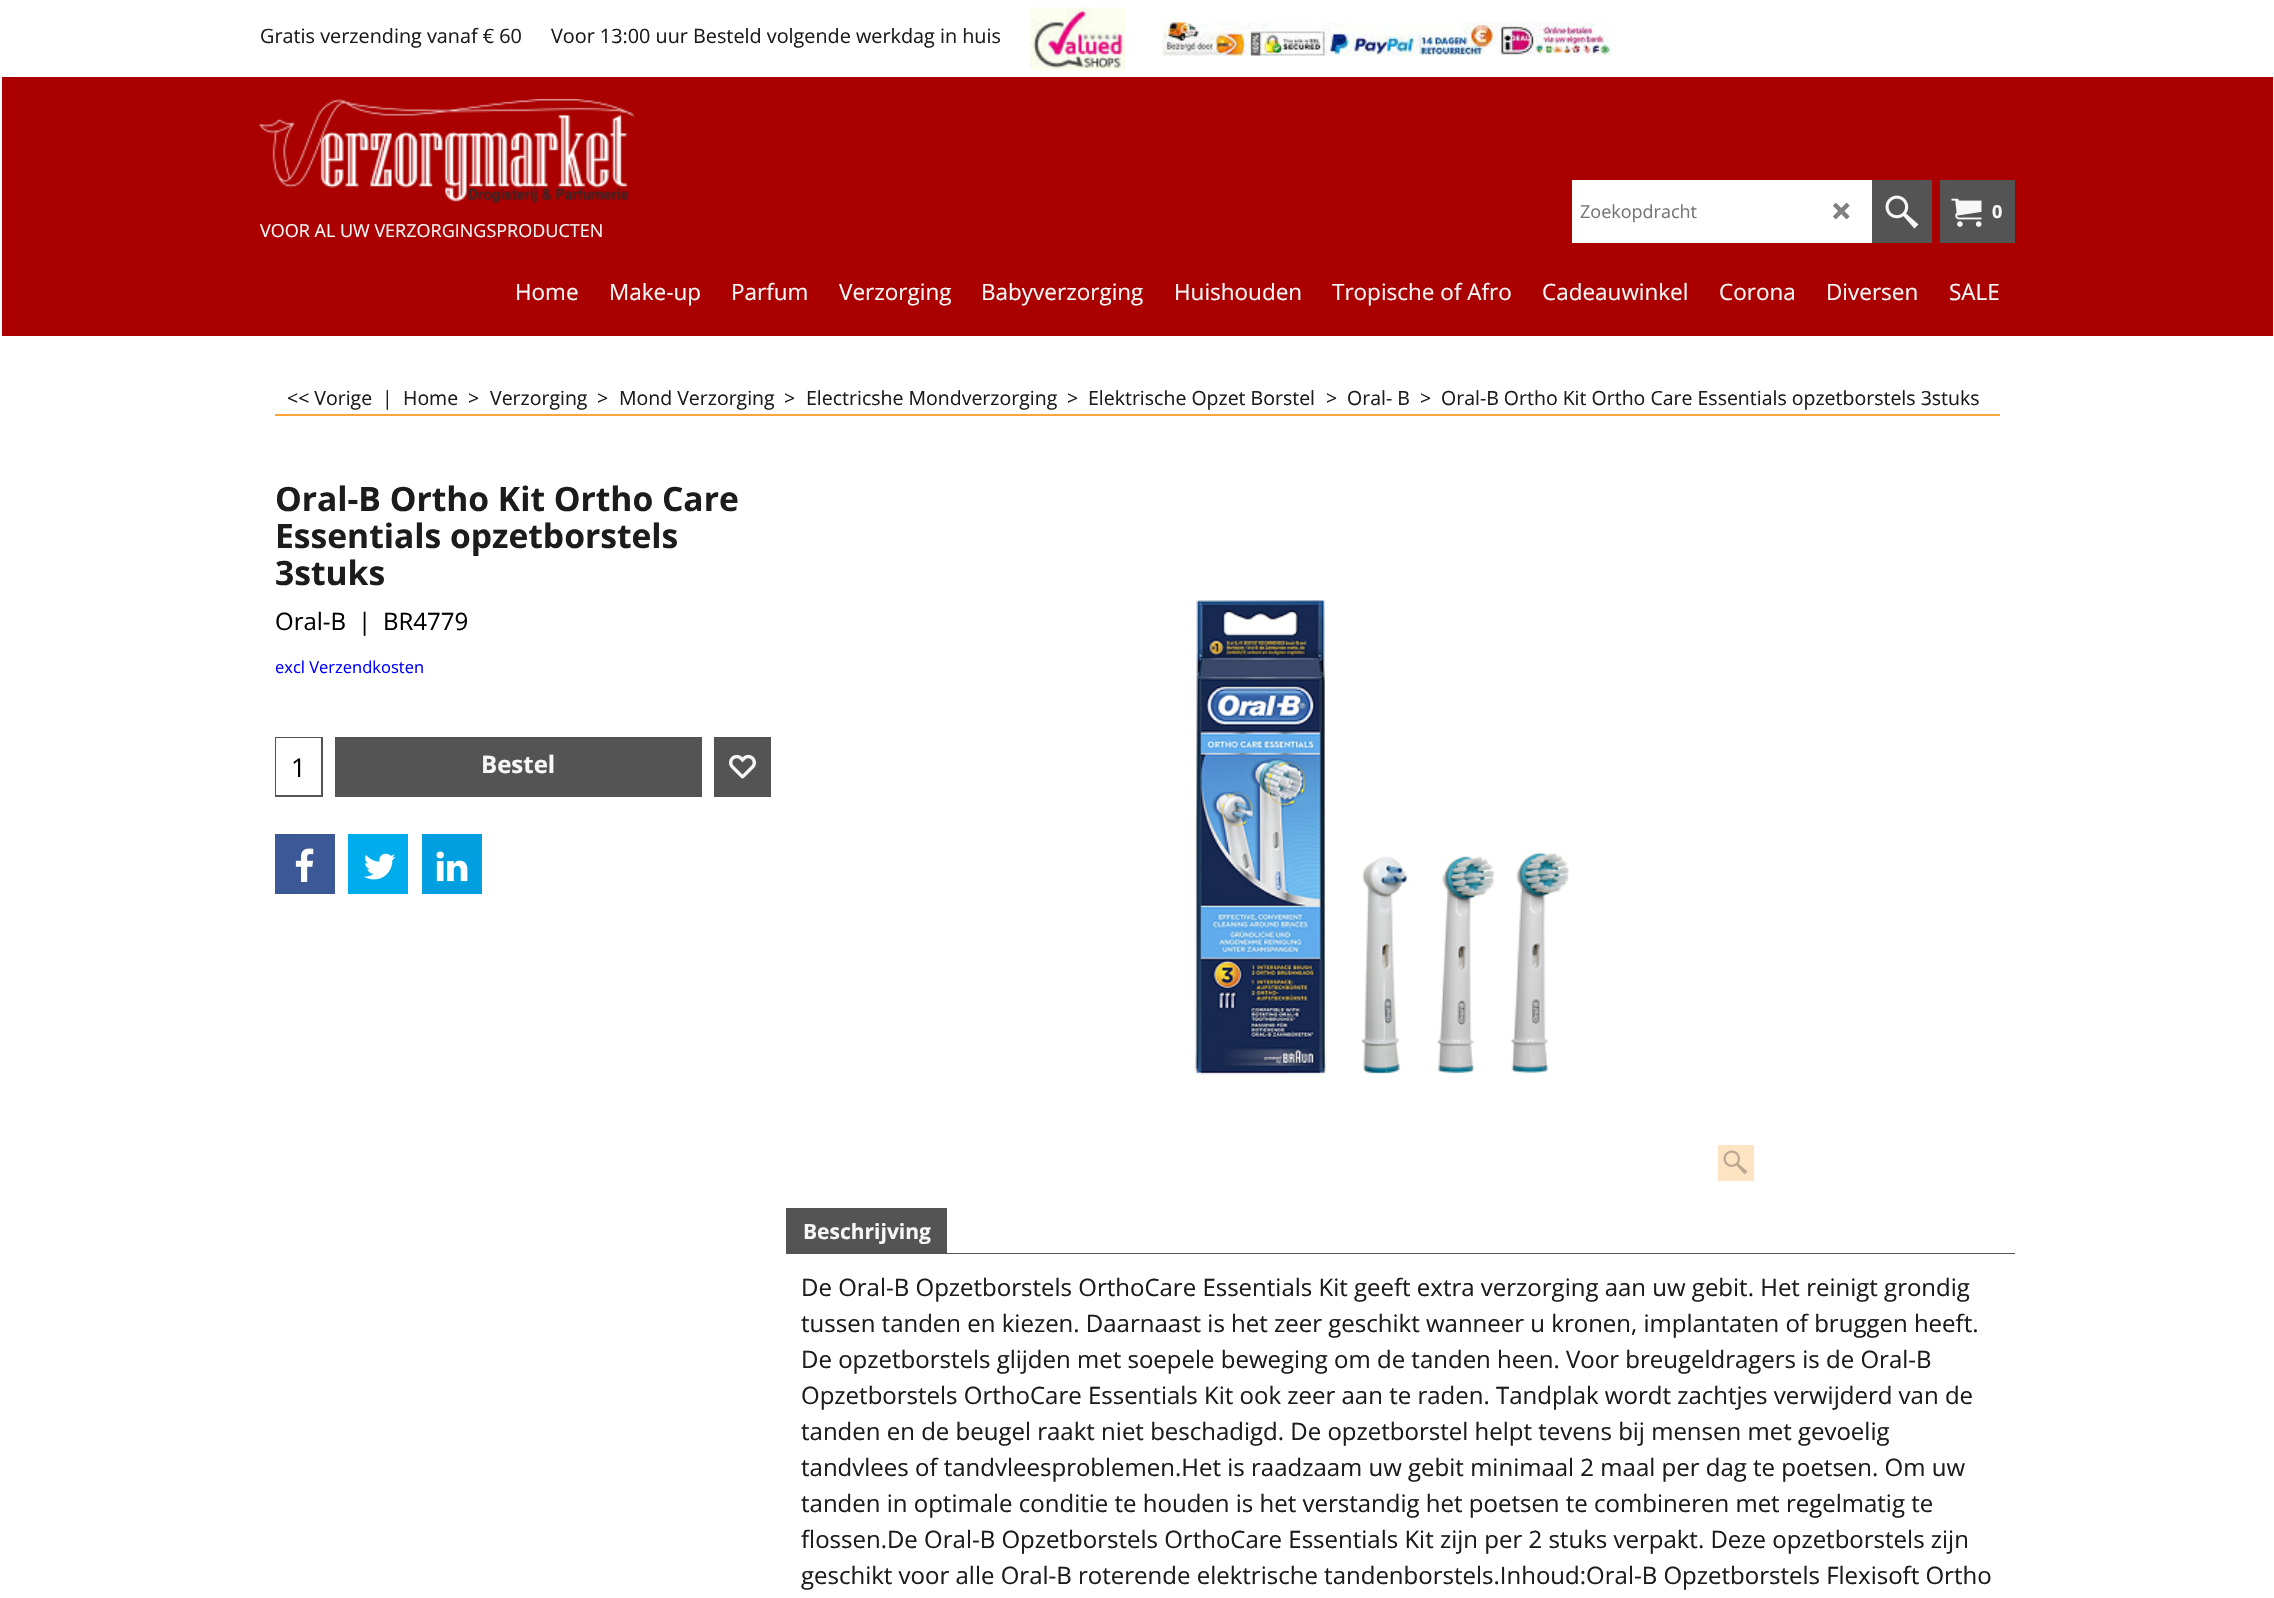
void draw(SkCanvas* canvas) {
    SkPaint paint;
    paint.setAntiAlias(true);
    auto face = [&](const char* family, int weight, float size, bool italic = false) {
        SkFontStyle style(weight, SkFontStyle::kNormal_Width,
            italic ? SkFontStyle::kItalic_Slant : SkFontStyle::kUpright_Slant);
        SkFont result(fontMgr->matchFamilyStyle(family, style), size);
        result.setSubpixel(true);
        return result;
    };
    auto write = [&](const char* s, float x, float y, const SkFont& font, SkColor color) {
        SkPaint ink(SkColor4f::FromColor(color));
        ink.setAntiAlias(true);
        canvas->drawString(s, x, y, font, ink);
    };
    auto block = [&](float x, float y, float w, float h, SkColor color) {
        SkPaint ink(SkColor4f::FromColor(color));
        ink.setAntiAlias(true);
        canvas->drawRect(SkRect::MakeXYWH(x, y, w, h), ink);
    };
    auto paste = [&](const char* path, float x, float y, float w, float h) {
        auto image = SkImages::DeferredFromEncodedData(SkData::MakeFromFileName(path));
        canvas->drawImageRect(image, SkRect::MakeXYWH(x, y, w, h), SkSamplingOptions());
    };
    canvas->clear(SK_ColorWHITE);
    block(2, 77, 2271, 259, SkColorSetRGB(170, 0, 0));
    auto kFont1 = face("Open Sans", 400, 19.8f);
    write("Gratis verzending vanaf € 60", 260, 43, kFont1, SkColorSetRGB(28, 28, 28));
    write("Voor 13:00 uur Besteld volgende werkdag in huis", 551, 43, kFont1, SkColorSetRGB(28, 28, 28));
    paste("pic1.png", 1030, 7, 95, 64);
    paste("pic2.png", 1162, 22, 451, 34);
    block(1572, 180, 300, 63, SK_ColorWHITE);
    auto kFont2 = face("Open Sans", 400, 18);
    write("Zoekopdracht", 1580, 218, kFont2, SkColorSetRGB(117, 117, 117));
    paste("pic3.png", 1833, 202, 17, 18);
    block(1872, 180, 60, 63, SkColorSetRGB(84, 84, 84));
    paste("pic4.png", 1885, 195, 34, 34);
    block(1940, 180, 75, 63, SkColorSetRGB(84, 84, 84));
    paste("pic5.png", 1951, 198, 31, 29);
    auto kFont3 = face("Open Sans", 700, 18);
    write("0", 1992, 218, kFont3, SkColorSetRGB(247, 247, 247));
    paste("pic6.png", 259, 99, 376, 104);
    write("VOOR AL UW VERZORGINGSPRODUCTEN", 260, 237, kFont2, SkColorSetRGB(247, 247, 247));
    auto kFont4 = face("Open Sans", 400, 22.5f);
    write("Home", 515, 300, kFont4, SkColorSetRGB(247, 247, 247));
    write("Make-up", 609, 300, kFont4, SkColorSetRGB(247, 247, 247));
    write("Parfum", 731, 300, kFont4, SkColorSetRGB(247, 247, 247));
    write("Verzorging", 839, 300, kFont4, SkColorSetRGB(247, 247, 247));
    write("Babyverzorging", 981, 300, kFont4, SkColorSetRGB(247, 247, 247));
    write("Huishouden", 1174, 300, kFont4, SkColorSetRGB(247, 247, 247));
    write("Tropische of Afro", 1332, 300, kFont4, SkColorSetRGB(247, 247, 247));
    write("Cadeauwinkel", 1542, 300, kFont4, SkColorSetRGB(247, 247, 247));
    write("Corona", 1719, 300, kFont4, SkColorSetRGB(247, 247, 247));
    write("Diversen", 1826, 300, kFont4, SkColorSetRGB(247, 247, 247));
    write("SALE", 1949, 300, kFont4, SkColorSetRGB(247, 247, 247));
    block(275, 414, 1725, 2, SkColorSetRGB(255, 164, 57));
    auto kFont5 = face("Open Sans", 400, 19.5f);
    write("<< Vorige", 287, 405, kFont5, SkColorSetRGB(28, 28, 28));
    write("|", 382, 405, kFont5, SkColorSetRGB(28, 28, 28));
    write("Home", 403, 405, kFont5, SkColorSetRGB(28, 28, 28));
    write(">", 468, 405, kFont5, SkColorSetRGB(28, 28, 28));
    write("Verzorging", 490, 405, kFont5, SkColorSetRGB(28, 28, 28));
    write(">", 597, 405, kFont5, SkColorSetRGB(28, 28, 28));
    write("Mond Verzorging", 619, 405, kFont5, SkColorSetRGB(28, 28, 28));
    write(">", 784, 405, kFont5, SkColorSetRGB(28, 28, 28));
    write("Electricshe Mondverzorging", 806, 405, kFont5, SkColorSetRGB(28, 28, 28));
    write(">", 1067, 405, kFont5, SkColorSetRGB(28, 28, 28));
    write("Elektrische Opzet Borstel", 1088, 405, kFont5, SkColorSetRGB(28, 28, 28));
    write(">", 1326, 405, kFont5, SkColorSetRGB(28, 28, 28));
    write("Oral- B", 1347, 405, kFont5, SkColorSetRGB(28, 28, 28));
    write(">", 1420, 405, kFont5, SkColorSetRGB(28, 28, 28));
    write("Oral-B Ortho Kit Ortho Care Essentials opzetborstels 3stuks", 1441, 405, kFont5, SkColorSetRGB(28, 28, 28));
    auto kFont6 = face("Open Sans", 700, 33.6f);
    write("Oral-B Ortho Kit Ortho Care", 275, 511, kFont6, SkColorSetRGB(28, 28, 28));
    write("Essentials opzetborstels", 275, 548, kFont6, SkColorSetRGB(28, 28, 28));
    write("3stuks", 275, 585, kFont6, SkColorSetRGB(28, 28, 28));
    auto kFont7 = face("Open Sans", 400, 24);
    write("Oral-B", 275, 630, kFont7, SK_ColorBLACK);
    write("|", 358, 630, kFont7, SK_ColorBLACK);
    write("BR4779", 383, 630, kFont7, SK_ColorBLACK);
    auto kFont8 = face("Open Sans", 400, 16.5f);
    write("excl Verzendkosten", 275, 673, kFont8, SkColorSetRGB(0, 0, 255));
    block(275, 737, 48, 60, SkColorSetRGB(84, 84, 84));
    block(276, 738, 45, 57, SK_ColorWHITE);
    auto kFont9 = face("Open Sans", 400, 26);
    write("1", 291, 777, kFont9, SK_ColorBLACK);
    block(335, 737, 367, 60, SkColorSetRGB(84, 84, 84));
    auto kFont10 = face("Open Sans", 700, 24);
    write("Bestel", 481, 773, kFont10, SkColorSetRGB(247, 247, 247));
    block(714, 737, 57, 60, SkColorSetRGB(84, 84, 84));
    paste("pic7.png", 729, 754, 27, 25);
    block(275, 834, 60, 60, SkColorSetRGB(60, 88, 151));
    paste("pic8.png", 295, 848, 19, 34);
    block(348, 834, 60, 60, SkColorSetRGB(0, 173, 236));
    paste("pic9.png", 364, 853, 32, 27);
    block(422, 834, 60, 60, SkColorSetRGB(1, 159, 224));
    paste("pic10.png", 436, 851, 32, 31);
    paste("pic11.png", 1194, 600, 376, 475);
    block(1718, 1145, 36, 36, SkColorSetRGB(255, 228, 196));
    paste("pic12.png", 1723, 1150, 25, 25);
    block(786, 1208, 161, 46, SkColorSetRGB(84, 84, 84));
    auto kFont11 = face("Open Sans", 700, 21);
    write("Beschrijving", 803, 1239, kFont11, SkColorSetRGB(247, 247, 247));
    block(947, 1253, 1068, 1, SkColorSetRGB(84, 84, 84));
    write("De Oral-B Opzetborstels OrthoCare Essentials Kit geeft extra verzorging aan uw gebit. Het reinigt grondig", 801, 1296, kFont7, SkColorSetRGB(28, 28, 28));
    write("tussen tanden en kiezen. Daarnaast is het zeer geschikt wanneer u kronen, implantaten of bruggen heeft.", 801, 1332, kFont7, SkColorSetRGB(28, 28, 28));
    write("De opzetborstels glijden met soepele beweging om de tanden heen. Voor breugeldragers is de Oral-B", 801, 1368, kFont7, SkColorSetRGB(28, 28, 28));
    write("Opzetborstels OrthoCare Essentials Kit ook zeer aan te raden. Tandplak wordt zachtjes verwijderd van de", 801, 1404, kFont7, SkColorSetRGB(28, 28, 28));
    write("tanden en de beugel raakt niet beschadigd. De opzetborstel helpt tevens bij mensen met gevoelig", 801, 1440, kFont7, SkColorSetRGB(28, 28, 28));
    write("tandvlees of tandvleesproblemen.Het is raadzaam uw gebit minimaal 2 maal per dag te poetsen. Om uw", 801, 1476, kFont7, SkColorSetRGB(28, 28, 28));
    write("tanden in optimale conditie te houden is het verstandig het poetsen te combineren met regelmatig te", 801, 1512, kFont7, SkColorSetRGB(28, 28, 28));
    write("flossen.De Oral-B Opzetborstels OrthoCare Essentials Kit zijn per 2 stuks verpakt. Deze opzetborstels zijn", 801, 1548, kFont7, SkColorSetRGB(28, 28, 28));
    write("geschikt voor alle Oral-B roterende elektrische tandenborstels.Inhoud:Oral-B Opzetborstels Flexisoft Ortho", 801, 1584, kFont7, SkColorSetRGB(28, 28, 28));
}
